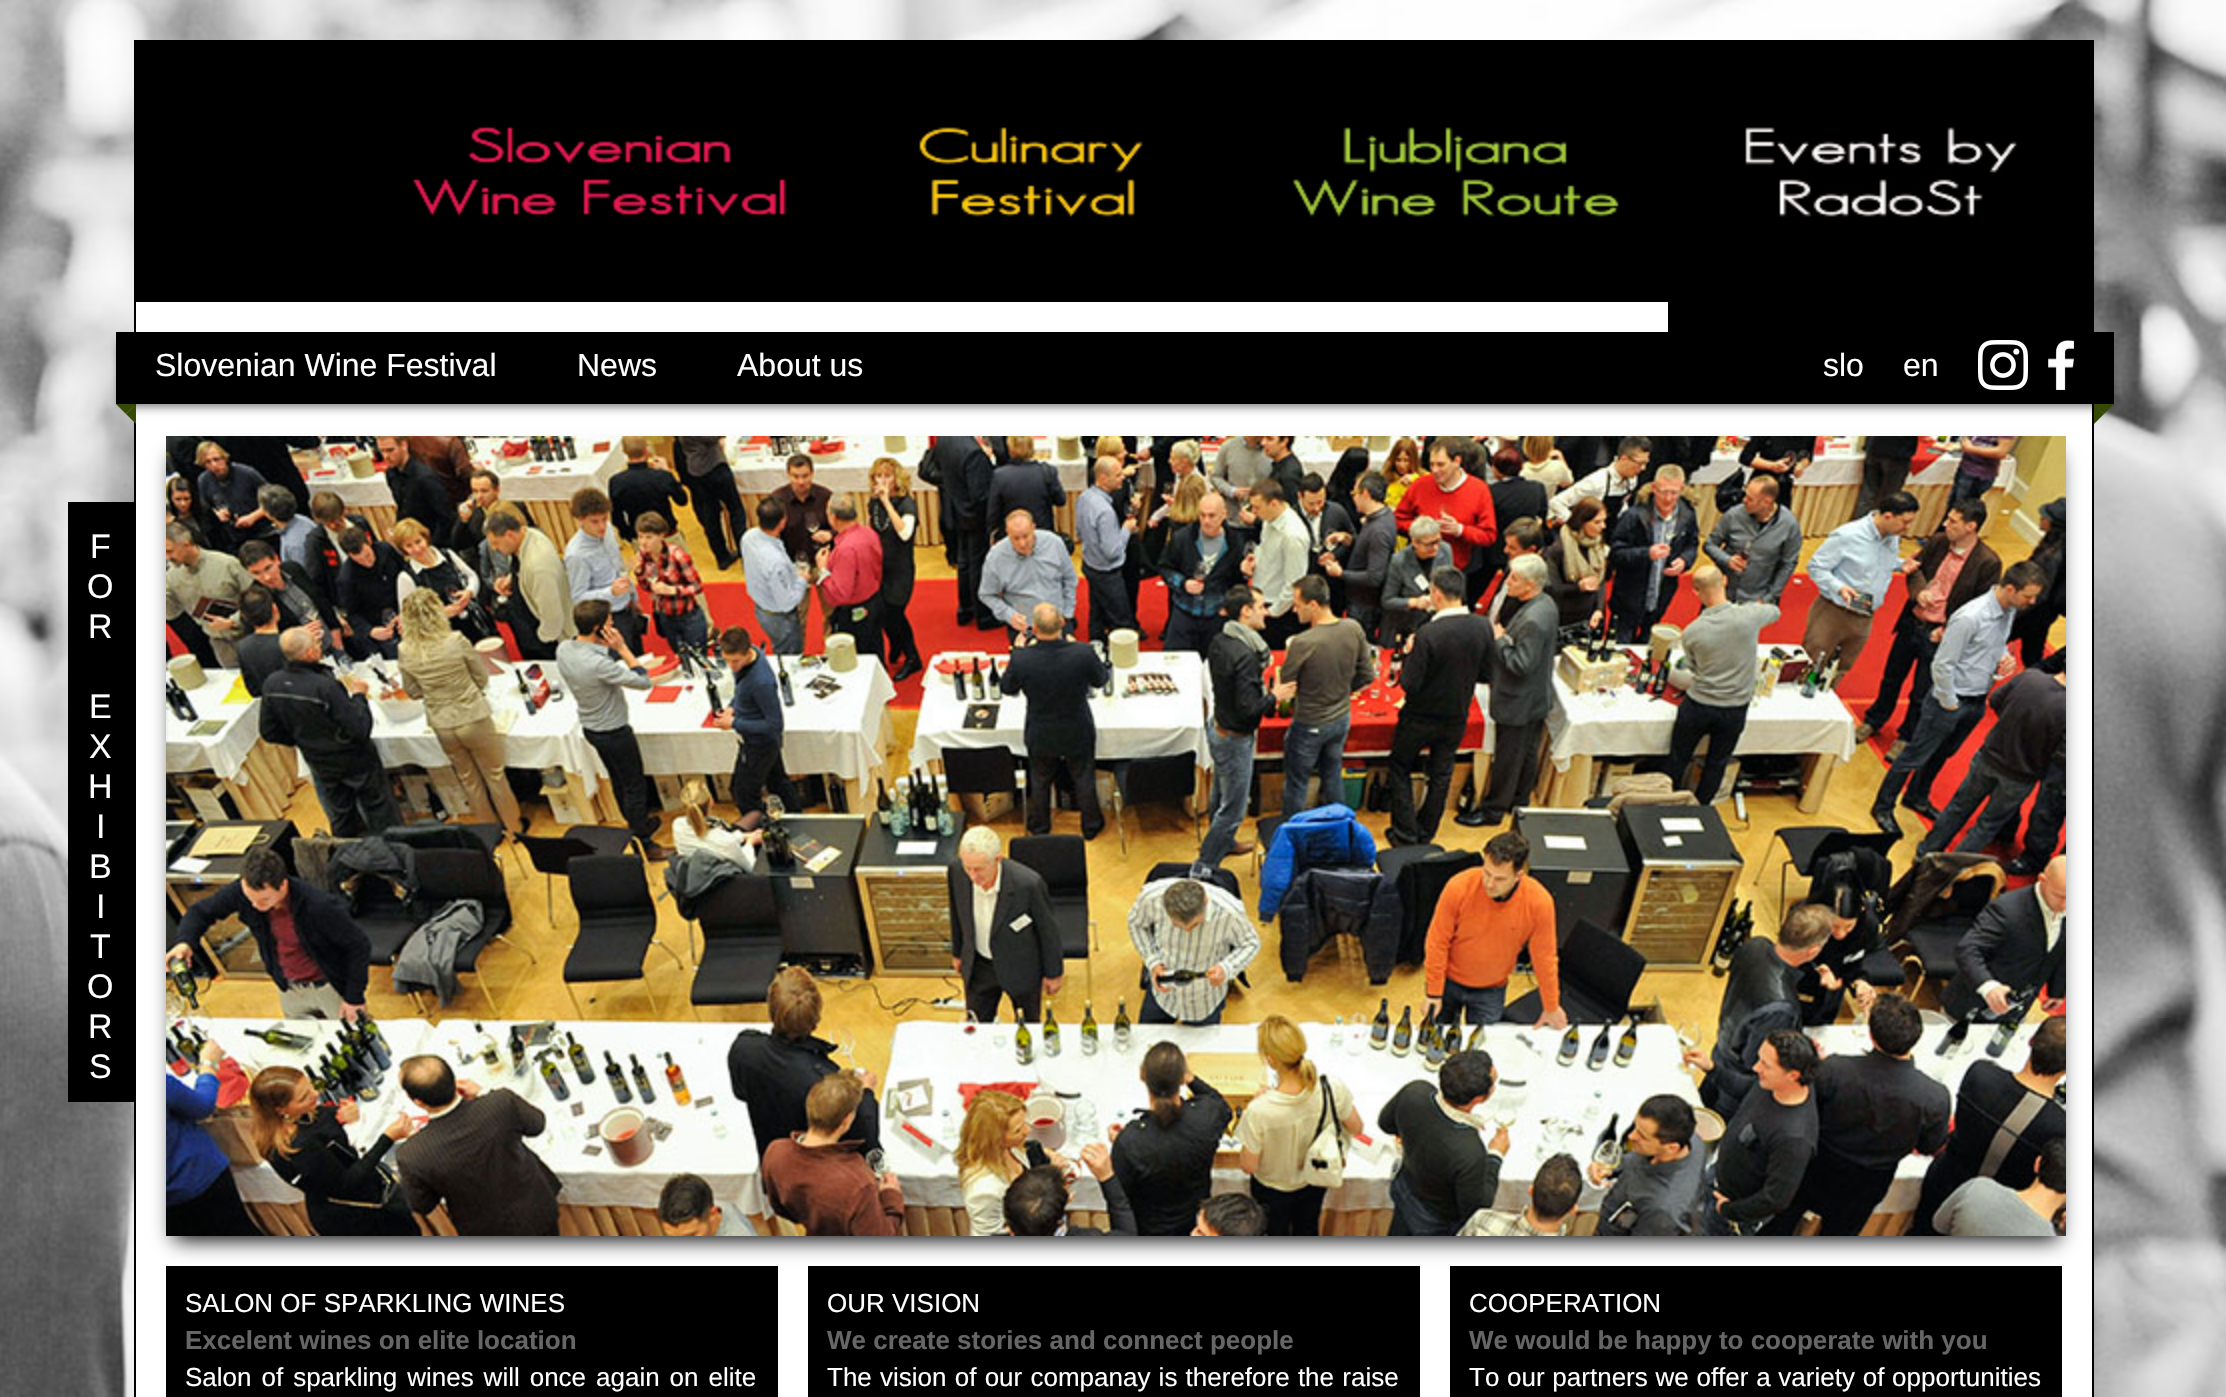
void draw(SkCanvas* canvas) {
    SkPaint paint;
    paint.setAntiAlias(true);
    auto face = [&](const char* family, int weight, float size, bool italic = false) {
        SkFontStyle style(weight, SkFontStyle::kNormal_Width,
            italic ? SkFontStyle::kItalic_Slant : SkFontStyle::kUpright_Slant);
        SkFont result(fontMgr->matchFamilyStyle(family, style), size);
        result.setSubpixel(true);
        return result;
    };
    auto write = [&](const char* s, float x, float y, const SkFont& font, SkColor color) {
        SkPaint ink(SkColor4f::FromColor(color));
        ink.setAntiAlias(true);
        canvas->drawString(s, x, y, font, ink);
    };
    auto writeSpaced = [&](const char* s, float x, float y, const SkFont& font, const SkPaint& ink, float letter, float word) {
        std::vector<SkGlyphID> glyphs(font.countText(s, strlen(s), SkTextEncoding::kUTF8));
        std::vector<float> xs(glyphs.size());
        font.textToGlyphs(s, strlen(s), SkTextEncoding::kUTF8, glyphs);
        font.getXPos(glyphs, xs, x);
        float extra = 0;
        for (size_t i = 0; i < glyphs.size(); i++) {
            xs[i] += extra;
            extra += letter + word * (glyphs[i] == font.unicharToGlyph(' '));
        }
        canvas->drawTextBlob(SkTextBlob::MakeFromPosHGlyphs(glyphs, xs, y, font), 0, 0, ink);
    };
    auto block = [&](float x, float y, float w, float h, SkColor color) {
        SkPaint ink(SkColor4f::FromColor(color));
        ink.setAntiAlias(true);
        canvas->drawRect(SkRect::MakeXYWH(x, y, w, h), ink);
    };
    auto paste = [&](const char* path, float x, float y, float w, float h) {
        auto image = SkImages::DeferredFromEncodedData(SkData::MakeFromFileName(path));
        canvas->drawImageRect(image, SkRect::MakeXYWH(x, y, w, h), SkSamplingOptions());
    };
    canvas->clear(SK_ColorWHITE);
    paste("pic1.png", 0, 0, 2226, 1397);
    block(136, 302, 1956, 1095, SK_ColorWHITE);
    paint.setStyle(SkPaint::kStroke_Style);
    paint.setStrokeWidth(2);
    paint.setColor(SK_ColorBLACK);
    canvas->drawRect(SkRect::MakeXYWH(135, 41, 1958, 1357), paint);
    block(136, 42, 1956, 260, SK_ColorBLACK);
    paste("pic2.png", 413, 125, 374, 92);
    paste("pic3.png", 919, 127, 224, 90);
    paste("pic4.png", 1292, 127, 327, 90);
    paste("pic5.png", 1668, 127, 424, 205);
    paint.setStyle(SkPaint::kFill_Style);
    paint.setColor(SkColorSetARGB(153, 0, 0, 0));
    paint.setMaskFilter(SkMaskFilter::MakeBlur(kNormal_SkBlurStyle, 5));
    canvas->drawRect(SkRect::MakeXYWH(120, 342, 1990, 64), paint);
    paint.setMaskFilter(nullptr);
    block(116, 332, 1998, 72, SK_ColorBLACK);
    auto kFont1 = face("Liberation Sans", 400, 32);
    write("Slovenian Wine Festival", 155, 376, kFont1, SK_ColorWHITE);
    write("News", 577, 376, kFont1, SK_ColorWHITE);
    write("About us", 737, 376, kFont1, SK_ColorWHITE);
    write("slo", 1823, 376, kFont1, SK_ColorWHITE);
    write("en", 1903, 376, kFont1, SK_ColorWHITE);
    paste("pic6.png", 1978, 340, 50, 50);
    paste("pic7.png", 2048, 340, 26, 50);
    paint.setColor(SkColorSetRGB(54, 73, 3));
    canvas->drawPath(SkPathBuilder().moveTo(116, 404).lineTo(136, 404).lineTo(126, 414).close().detach(), paint);
    canvas->drawPath(SkPathBuilder().moveTo(136, 404).lineTo(136, 424).lineTo(126, 414).close().detach(), paint);
    canvas->drawPath(SkPathBuilder().moveTo(2094, 404).lineTo(2114, 404).lineTo(2104, 414).close().detach(), paint);
    canvas->drawPath(SkPathBuilder().moveTo(2094, 424).lineTo(2094, 404).lineTo(2104, 414).close().detach(), paint);
    block(68, 502, 66, 600, SK_ColorBLACK);
    auto kFont2 = face("Liberation Sans", 400, 34);
    write("F", 90, 558, kFont2, SK_ColorWHITE);
    write("O", 87, 598, kFont2, SK_ColorWHITE);
    write("R", 88, 638, kFont2, SK_ColorWHITE);
    write("E", 89, 718, kFont2, SK_ColorWHITE);
    write("X", 89, 758, kFont2, SK_ColorWHITE);
    write("H", 88, 798, kFont2, SK_ColorWHITE);
    write("I", 96, 838, kFont2, SK_ColorWHITE);
    write("B", 89, 878, kFont2, SK_ColorWHITE);
    write("I", 96, 918, kFont2, SK_ColorWHITE);
    write("T", 90, 958, kFont2, SK_ColorWHITE);
    write("O", 87, 998, kFont2, SK_ColorWHITE);
    write("R", 88, 1038, kFont2, SK_ColorWHITE);
    write("S", 89, 1078, kFont2, SK_ColorWHITE);
    paint.setColor(SK_ColorBLACK);
    paint.setMaskFilter(SkMaskFilter::MakeBlur(kNormal_SkBlurStyle, 10));
    canvas->drawRect(SkRect::MakeXYWH(174, 456, 1884, 784), paint);
    paint.setMaskFilter(nullptr);
    paste("pic8.png", 166, 436, 1900, 800);
    block(166, 1266, 612, 131, SK_ColorBLACK);
    auto kFont3 = face("Liberation Sans", 400, 26);
    write("SALON OF SPARKLING WINES", 185, 1312, kFont3, SK_ColorWHITE);
    auto kFont4 = face("Liberation Sans", 700, 26);
    write("Excelent wines on elite location", 185, 1349, kFont4, SkColorSetRGB(102, 102, 102));
    paint.setColor(SK_ColorWHITE);
    writeSpaced("Salon of sparkling wines will once again on elite", 185, 1386, kFont3, paint, 0, 2.75f);
    block(808, 1266, 612, 131, SK_ColorBLACK);
    write("OUR VISION", 827, 1312, kFont3, SK_ColorWHITE);
    write("We create stories and connect people", 827, 1349, kFont4, SkColorSetRGB(102, 102, 102));
    writeSpaced("The vision of our companay is therefore the raise", 827, 1386, kFont3, paint, 0, 1);
    block(1450, 1266, 612, 131, SK_ColorBLACK);
    write("COOPERATION", 1469, 1312, kFont3, SK_ColorWHITE);
    write("We would be happy to cooperate with you", 1469, 1349, kFont4, SkColorSetRGB(102, 102, 102));
    writeSpaced("To our partners we offer a variety of opportunities", 1469, 1386, kFont3, paint, 0, 0.5f);
}
